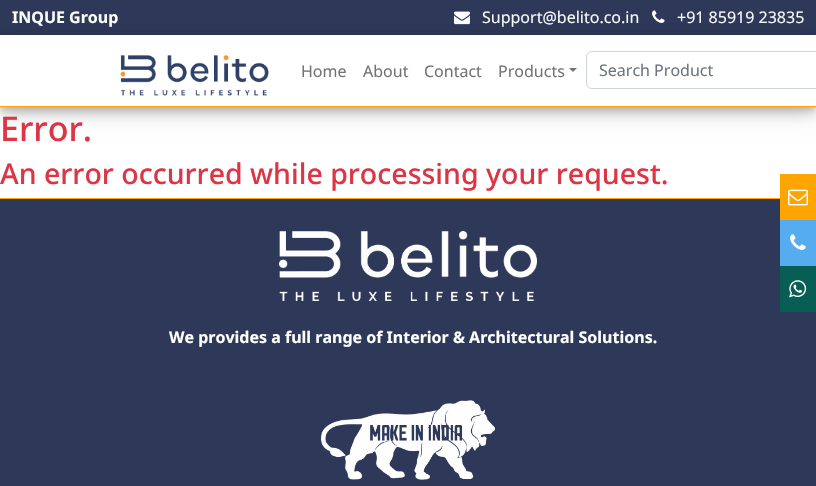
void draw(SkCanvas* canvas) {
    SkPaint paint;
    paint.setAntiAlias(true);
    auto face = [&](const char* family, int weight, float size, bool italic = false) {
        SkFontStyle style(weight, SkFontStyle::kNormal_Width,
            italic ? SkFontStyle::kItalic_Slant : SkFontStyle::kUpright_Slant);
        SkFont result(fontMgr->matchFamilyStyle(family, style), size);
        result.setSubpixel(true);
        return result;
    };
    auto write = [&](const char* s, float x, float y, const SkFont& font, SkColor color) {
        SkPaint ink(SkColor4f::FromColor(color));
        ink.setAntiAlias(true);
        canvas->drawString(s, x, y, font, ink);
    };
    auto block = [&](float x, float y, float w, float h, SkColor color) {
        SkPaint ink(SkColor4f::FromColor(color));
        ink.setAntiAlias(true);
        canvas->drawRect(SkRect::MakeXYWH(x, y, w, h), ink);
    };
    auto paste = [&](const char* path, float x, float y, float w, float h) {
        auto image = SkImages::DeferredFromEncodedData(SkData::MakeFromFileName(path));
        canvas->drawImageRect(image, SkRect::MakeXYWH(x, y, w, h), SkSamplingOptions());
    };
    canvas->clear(SK_ColorWHITE);
    block(0, 0, 816, 35, SkColorSetRGB(46, 56, 88));
    auto kFont1 = face("Noto Sans", 700, 16);
    write("INQUE Group", 12, 23, kFont1, SK_ColorWHITE);
    paste("pic1.png", 454, 11, 16, 14);
    auto kFont2 = face("Noto Sans", 400, 16);
    write("Support@belito.co.in", 482, 23, kFont2, SkColorSetRGB(248, 249, 250));
    paste("pic2.png", 652, 10, 13, 13);
    write("+91 85919 23835", 677, 23, kFont2, SkColorSetRGB(248, 249, 250));
    canvas->save();
    canvas->clipPath(SkPathBuilder(SkPathFillType::kEvenOdd).moveTo(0, 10).lineTo(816, 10).lineTo(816, 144).lineTo(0, 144).close().moveTo(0, 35).lineTo(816, 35).lineTo(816, 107).lineTo(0, 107).close().detach(), true);
    paint.setColor(SkColorSetARGB(48, 0, 0, 0));
    paint.setMaskFilter(SkMaskFilter::MakeBlur(kNormal_SkBlurStyle, 10));
    canvas->drawRect(SkRect::MakeXYWH(0, 41, 816, 72), paint);
    paint.setMaskFilter(nullptr);
    canvas->restore();
    canvas->save();
    canvas->clipPath(SkPathBuilder(SkPathFillType::kEvenOdd).moveTo(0, 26).lineTo(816, 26).lineTo(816, 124).lineTo(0, 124).close().moveTo(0, 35).lineTo(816, 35).lineTo(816, 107).lineTo(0, 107).close().detach(), true);
    paint.setColor(SkColorSetARGB(51, 0, 0, 0));
    paint.setMaskFilter(SkMaskFilter::MakeBlur(kNormal_SkBlurStyle, 4));
    canvas->drawRect(SkRect::MakeXYWH(0, 39, 816, 72), paint);
    paint.setMaskFilter(nullptr);
    canvas->restore();
    block(0, 106, 816, 1, SkColorSetRGB(255, 165, 0));
    paste("pic3.png", 120, 55, 149, 41);
    write("Home", 301, 77, kFont2, SkColorSetRGB(115, 115, 115));
    write("About", 363, 77, kFont2, SkColorSetRGB(115, 115, 115));
    write("Contact", 424, 77, kFont2, SkColorSetRGB(115, 115, 115));
    write("Products", 498, 77, kFont2, SkColorSetRGB(115, 115, 115));
    paint.setColor(SkColorSetRGB(115, 115, 115));
    canvas->drawPath(SkPathBuilder().moveTo(569, 68).lineTo(577, 68).lineTo(573, 72).close().detach(), paint);
    paint.setStyle(SkPaint::kStroke_Style);
    paint.setStrokeWidth(1);
    paint.setColor(SkColorSetRGB(206, 212, 218));
    canvas->drawRoundRect(SkRect::MakeXYWH(586.5f, 51.5f, 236, 37), 5.5f, 5.5f, paint);
    write("Search Product", 599, 76, kFont2, SkColorSetRGB(108, 117, 125));
    block(0, 199, 816, 287, SkColorSetRGB(46, 56, 88));
    block(780, 174, 36, 46, SkColorSetRGB(255, 165, 0));
    paste("pic4.png", 788, 189, 20, 17);
    block(780, 220, 36, 46, SkColorSetRGB(85, 172, 238));
    paste("pic5.png", 790, 234, 16, 16);
    block(780, 266, 36, 46, SkColorSetRGB(7, 94, 84));
    paste("pic6.png", 789, 280, 18, 18);
    auto kFont3 = face("Noto Sans", 500, 34);
    write("Error.", 0, 141, kFont3, SkColorSetRGB(220, 53, 69));
    auto kFont4 = face("Noto Sans", 500, 28.5f);
    write("An error occurred while processing your request.", 0, 184, kFont4, SkColorSetRGB(220, 53, 69));
    block(0, 198, 780, 1, SkColorSetRGB(255, 165, 0));
    paste("pic7.png", 279, 231, 258, 70);
    write("We provides a full range of Interior & Architectural Solutions.", 169, 343, kFont1, SK_ColorWHITE);
    paste("pic8.png", 321, 400, 174, 80);
}
